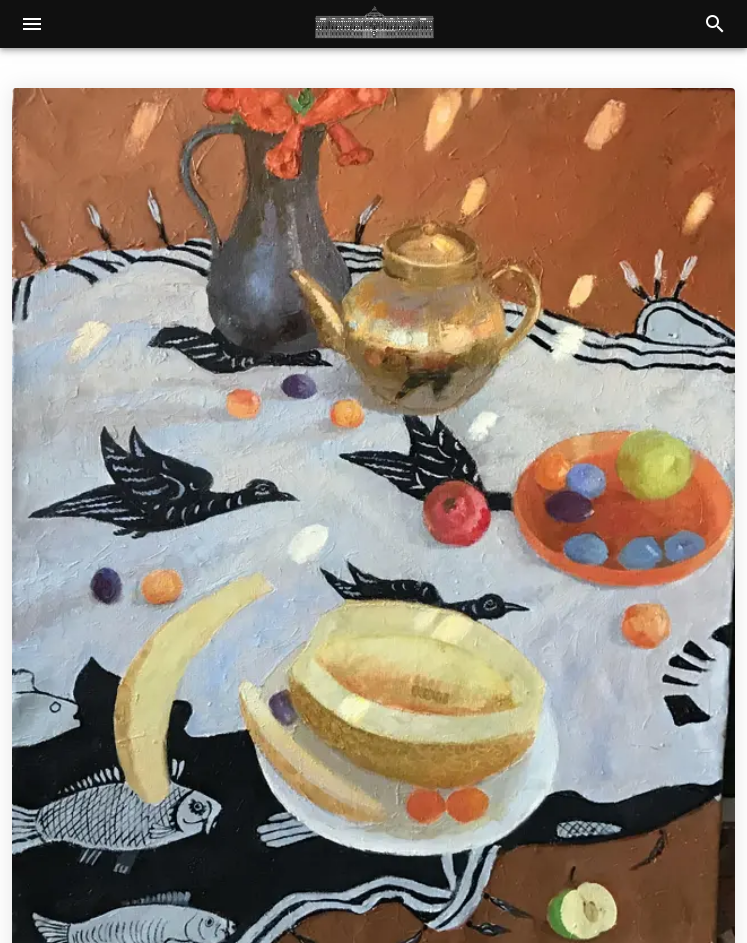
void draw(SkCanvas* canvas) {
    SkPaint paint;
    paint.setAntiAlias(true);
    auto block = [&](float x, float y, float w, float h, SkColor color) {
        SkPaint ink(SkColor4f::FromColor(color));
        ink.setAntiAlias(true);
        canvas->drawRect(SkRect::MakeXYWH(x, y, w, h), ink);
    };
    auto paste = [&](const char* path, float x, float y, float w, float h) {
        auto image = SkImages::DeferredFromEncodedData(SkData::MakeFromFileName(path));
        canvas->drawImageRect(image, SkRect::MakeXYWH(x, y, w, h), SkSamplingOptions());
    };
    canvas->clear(SK_ColorWHITE);
    paint.setColor(SkColorSetARGB(31, 0, 0, 0));
    paint.setMaskFilter(SkMaskFilter::MakeBlur(kNormal_SkBlurStyle, 5));
    canvas->drawRect(SkRect::MakeXYWH(0, 1, 747, 48), paint);
    paint.setMaskFilter(nullptr);
    paint.setColor(SkColorSetARGB(36, 0, 0, 0));
    paint.setMaskFilter(SkMaskFilter::MakeBlur(kNormal_SkBlurStyle, 2.5f));
    canvas->drawRect(SkRect::MakeXYWH(0, 4, 747, 48), paint);
    paint.setMaskFilter(nullptr);
    paint.setColor(SkColorSetARGB(51, 0, 0, 0));
    paint.setMaskFilter(SkMaskFilter::MakeBlur(kNormal_SkBlurStyle, 2));
    canvas->drawRect(SkRect::MakeXYWH(1, 3, 745, 46), paint);
    paint.setMaskFilter(nullptr);
    block(0, 0, 747, 48, SkColorSetRGB(16, 16, 16));
    paste("pic1.png", 23, 18, 18, 12);
    paste("pic2.png", 314, 6, 120, 33);
    paste("pic3.png", 706, 15, 18, 18);
    paint.setColor(SkColorSetARGB(26, 0, 0, 0));
    paint.setMaskFilter(SkMaskFilter::MakeBlur(kNormal_SkBlurStyle, 10));
    canvas->drawRect(SkRect::MakeXYWH(12, 89, 723, 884), paint);
    paint.setMaskFilter(nullptr);
    paste("pic4.png", 12, 88, 723, 855);
}
